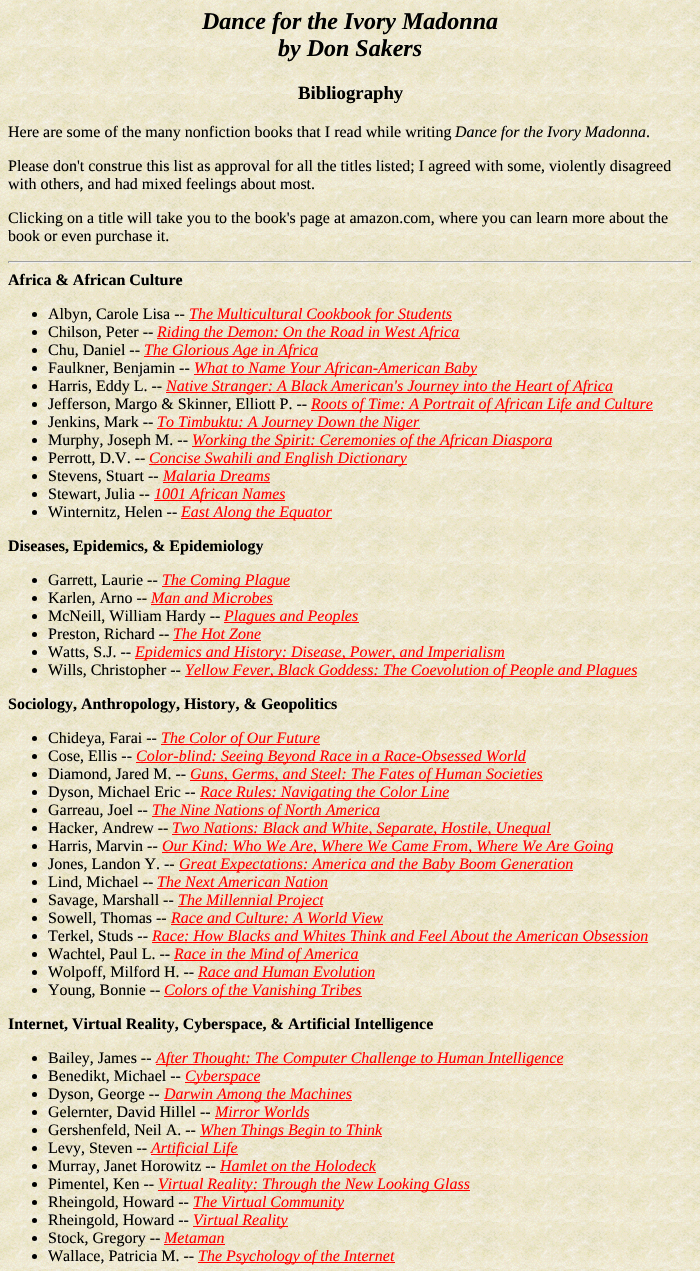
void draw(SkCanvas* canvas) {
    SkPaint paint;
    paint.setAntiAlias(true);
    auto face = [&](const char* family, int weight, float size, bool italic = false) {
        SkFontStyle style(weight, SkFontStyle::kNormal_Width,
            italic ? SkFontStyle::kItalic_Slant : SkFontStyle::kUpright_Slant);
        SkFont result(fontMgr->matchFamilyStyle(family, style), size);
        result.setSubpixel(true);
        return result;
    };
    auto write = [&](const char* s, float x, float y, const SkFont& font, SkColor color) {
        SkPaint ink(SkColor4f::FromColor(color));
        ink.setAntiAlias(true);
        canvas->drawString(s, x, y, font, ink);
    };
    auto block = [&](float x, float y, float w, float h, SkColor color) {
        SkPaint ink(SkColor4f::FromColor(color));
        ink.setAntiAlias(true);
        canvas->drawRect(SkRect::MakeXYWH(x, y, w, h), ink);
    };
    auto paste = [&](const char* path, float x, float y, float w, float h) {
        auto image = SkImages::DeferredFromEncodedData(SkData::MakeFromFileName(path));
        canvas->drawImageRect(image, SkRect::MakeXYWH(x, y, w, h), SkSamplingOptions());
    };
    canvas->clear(SK_ColorWHITE);
    paste("pic1.png", 0, 0, 700, 1271);
    auto kFont1 = face("Liberation Serif", 700, 24, true);
    write("Dance for the Ivory Madonna", 202, 29, kFont1, SK_ColorBLACK);
    write("by Don Sakers", 278, 56, kFont1, SK_ColorBLACK);
    auto kFont2 = face("Liberation Serif", 700, 18.75f);
    write("Bibliography", 298, 99, kFont2, SK_ColorBLACK);
    auto kFont3 = face("Liberation Serif", 400, 16);
    write("Here are some of the many nonfiction books that I read while writing", 8, 137, kFont3, SK_ColorBLACK);
    auto kFont4 = face("Liberation Serif", 400, 16, true);
    write("Dance for the Ivory Madonna", 455, 137, kFont4, SK_ColorBLACK);
    write(".", 646, 137, kFont3, SK_ColorBLACK);
    write("Please don't construe this list as approval for all the titles listed; I agreed with some, violently disagreed", 8, 171, kFont3, SK_ColorBLACK);
    write("with others, and had mixed feelings about most.", 8, 189, kFont3, SK_ColorBLACK);
    write("Clicking on a title will take you to the book's page at amazon.com, where you can learn more about the", 8, 223, kFont3, SK_ColorBLACK);
    write("book or even purchase it.", 8, 241, kFont3, SK_ColorBLACK);
    block(8, 261, 684, 1, SkColorSetRGB(159, 159, 159));
    block(691, 261, 1, 2, SkColorSetRGB(238, 238, 238));
    block(8, 262, 684, 1, SkColorSetRGB(238, 238, 238));
    block(8, 261, 1, 2, SkColorSetRGB(159, 159, 159));
    auto kFont5 = face("Liberation Serif", 700, 16);
    write("Africa & African Culture", 8, 285, kFont5, SK_ColorBLACK);
    paint.setColor(SK_ColorBLACK);
    canvas->drawCircle(34.5f, 314.5f, 2.5f, paint);
    write("Albyn, Carole Lisa --", 48, 319, kFont3, SK_ColorBLACK);
    block(189, 320, 263, 1, SkColorSetRGB(255, 0, 0));
    write("The Multicultural Cookbook for Students", 189, 319, kFont4, SkColorSetRGB(255, 0, 0));
    canvas->drawCircle(34.5f, 332.5f, 2.5f, paint);
    write("Chilson, Peter --", 48, 337, kFont3, SK_ColorBLACK);
    block(157, 338, 303, 1, SkColorSetRGB(255, 0, 0));
    write("Riding the Demon: On the Road in West Africa", 157, 337, kFont4, SkColorSetRGB(255, 0, 0));
    canvas->drawCircle(34.5f, 350.5f, 2.5f, paint);
    write("Chu, Daniel --", 48, 355, kFont3, SK_ColorBLACK);
    block(144, 356, 174, 1, SkColorSetRGB(255, 0, 0));
    write("The Glorious Age in Africa", 144, 355, kFont4, SkColorSetRGB(255, 0, 0));
    canvas->drawCircle(34.5f, 368.5f, 2.5f, paint);
    write("Faulkner, Benjamin --", 48, 373, kFont3, SK_ColorBLACK);
    block(194, 374, 283, 1, SkColorSetRGB(255, 0, 0));
    write("What to Name Your African-American Baby", 194, 373, kFont4, SkColorSetRGB(255, 0, 0));
    canvas->drawCircle(34.5f, 386.5f, 2.5f, paint);
    write("Harris, Eddy L. --", 48, 391, kFont3, SK_ColorBLACK);
    block(166, 392, 447, 1, SkColorSetRGB(255, 0, 0));
    write("Native Stranger: A Black American's Journey into the Heart of Africa", 166, 391, kFont4, SkColorSetRGB(255, 0, 0));
    canvas->drawCircle(34.5f, 404.5f, 2.5f, paint);
    write("Jefferson, Margo & Skinner, Elliott P. --", 48, 409, kFont3, SK_ColorBLACK);
    block(311, 410, 342, 1, SkColorSetRGB(255, 0, 0));
    write("Roots of Time: A Portrait of African Life and Culture", 311, 409, kFont4, SkColorSetRGB(255, 0, 0));
    canvas->drawCircle(34.5f, 422.5f, 2.5f, paint);
    write("Jenkins, Mark --", 48, 427, kFont3, SK_ColorBLACK);
    block(157, 428, 263, 1, SkColorSetRGB(255, 0, 0));
    write("To Timbuktu: A Journey Down the Niger", 157, 427, kFont4, SkColorSetRGB(255, 0, 0));
    canvas->drawCircle(34.5f, 440.5f, 2.5f, paint);
    write("Murphy, Joseph M. --", 48, 445, kFont3, SK_ColorBLACK);
    block(192, 446, 360, 1, SkColorSetRGB(255, 0, 0));
    write("Working the Spirit: Ceremonies of the African Diaspora", 192, 445, kFont4, SkColorSetRGB(255, 0, 0));
    canvas->drawCircle(34.5f, 458.5f, 2.5f, paint);
    write("Perrott, D.V. --", 48, 463, kFont3, SK_ColorBLACK);
    block(149, 464, 258, 1, SkColorSetRGB(255, 0, 0));
    write("Concise Swahili and English Dictionary", 149, 463, kFont4, SkColorSetRGB(255, 0, 0));
    canvas->drawCircle(34.5f, 476.5f, 2.5f, paint);
    write("Stevens, Stuart --", 48, 481, kFont3, SK_ColorBLACK);
    write("Malaria Dreams", 163, 481, kFont4, SkColorSetRGB(255, 0, 0));
    block(163, 482, 107, 1, SkColorSetRGB(255, 0, 0));
    canvas->drawCircle(34.5f, 494.5f, 2.5f, paint);
    write("Stewart, Julia --", 48, 499, kFont3, SK_ColorBLACK);
    block(154, 500, 131, 1, SkColorSetRGB(255, 0, 0));
    write("1001 African Names", 154, 499, kFont4, SkColorSetRGB(255, 0, 0));
    canvas->drawCircle(34.5f, 512.5f, 2.5f, paint);
    write("Winternitz, Helen --", 48, 517, kFont3, SK_ColorBLACK);
    block(181, 518, 151, 1, SkColorSetRGB(255, 0, 0));
    write("East Along the Equator", 181, 517, kFont4, SkColorSetRGB(255, 0, 0));
    write("Diseases, Epidemics, & Epidemiology", 8, 551, kFont5, SK_ColorBLACK);
    canvas->drawCircle(34.5f, 580.5f, 2.5f, paint);
    write("Garrett, Laurie --", 48, 585, kFont3, SK_ColorBLACK);
    block(162, 586, 128, 1, SkColorSetRGB(255, 0, 0));
    write("The Coming Plague", 162, 585, kFont4, SkColorSetRGB(255, 0, 0));
    canvas->drawCircle(34.5f, 598.5f, 2.5f, paint);
    write("Karlen, Arno --", 48, 603, kFont3, SK_ColorBLACK);
    write("Man and Microbes", 151, 603, kFont4, SkColorSetRGB(255, 0, 0));
    block(151, 604, 122, 1, SkColorSetRGB(255, 0, 0));
    canvas->drawCircle(34.5f, 616.5f, 2.5f, paint);
    write("McNeill, William Hardy --", 48, 621, kFont3, SK_ColorBLACK);
    block(224, 622, 135, 1, SkColorSetRGB(255, 0, 0));
    write("Plagues and Peoples", 224, 621, kFont4, SkColorSetRGB(255, 0, 0));
    canvas->drawCircle(34.5f, 634.5f, 2.5f, paint);
    write("Preston, Richard --", 48, 639, kFont3, SK_ColorBLACK);
    write("The Hot Zone", 173, 639, kFont4, SkColorSetRGB(255, 0, 0));
    block(173, 640, 88, 1, SkColorSetRGB(255, 0, 0));
    canvas->drawCircle(34.5f, 652.5f, 2.5f, paint);
    write("Watts, S.J. --", 48, 657, kFont3, SK_ColorBLACK);
    block(135, 658, 370, 1, SkColorSetRGB(255, 0, 0));
    write("Epidemics and History: Disease, Power, and Imperialism", 135, 657, kFont4, SkColorSetRGB(255, 0, 0));
    canvas->drawCircle(34.5f, 670.5f, 2.5f, paint);
    write("Wills, Christopher --", 48, 675, kFont3, SK_ColorBLACK);
    block(185, 676, 452, 1, SkColorSetRGB(255, 0, 0));
    write("Yellow Fever, Black Goddess: The Coevolution of People and Plagues", 185, 675, kFont4, SkColorSetRGB(255, 0, 0));
    write("Sociology, Anthropology, History, & Geopolitics", 8, 709, kFont5, SK_ColorBLACK);
    canvas->drawCircle(34.5f, 738.5f, 2.5f, paint);
    write("Chideya, Farai --", 48, 743, kFont3, SK_ColorBLACK);
    block(161, 744, 159, 1, SkColorSetRGB(255, 0, 0));
    write("The Color of Our Future", 161, 743, kFont4, SkColorSetRGB(255, 0, 0));
    canvas->drawCircle(34.5f, 756.5f, 2.5f, paint);
    write("Cose, Ellis --", 48, 761, kFont3, SK_ColorBLACK);
    block(136, 762, 390, 1, SkColorSetRGB(255, 0, 0));
    write("Color-blind: Seeing Beyond Race in a Race-Obsessed World", 136, 761, kFont4, SkColorSetRGB(255, 0, 0));
    canvas->drawCircle(34.5f, 774.5f, 2.5f, paint);
    write("Diamond, Jared M. --", 48, 779, kFont3, SK_ColorBLACK);
    block(190, 780, 353, 1, SkColorSetRGB(255, 0, 0));
    write("Guns, Germs, and Steel: The Fates of Human Societies", 190, 779, kFont4, SkColorSetRGB(255, 0, 0));
    canvas->drawCircle(34.5f, 792.5f, 2.5f, paint);
    write("Dyson, Michael Eric --", 48, 797, kFont3, SK_ColorBLACK);
    block(200, 798, 249, 1, SkColorSetRGB(255, 0, 0));
    write("Race Rules: Navigating the Color Line", 200, 797, kFont4, SkColorSetRGB(255, 0, 0));
    canvas->drawCircle(34.5f, 810.5f, 2.5f, paint);
    write("Garreau, Joel --", 48, 815, kFont3, SK_ColorBLACK);
    block(152, 816, 228, 1, SkColorSetRGB(255, 0, 0));
    write("The Nine Nations of North America", 152, 815, kFont4, SkColorSetRGB(255, 0, 0));
    canvas->drawCircle(34.5f, 828.5f, 2.5f, paint);
    write("Hacker, Andrew --", 48, 833, kFont3, SK_ColorBLACK);
    block(172, 834, 379, 1, SkColorSetRGB(255, 0, 0));
    write("Two Nations: Black and White, Separate, Hostile, Unequal", 172, 833, kFont4, SkColorSetRGB(255, 0, 0));
    canvas->drawCircle(34.5f, 846.5f, 2.5f, paint);
    write("Harris, Marvin --", 48, 851, kFont3, SK_ColorBLACK);
    block(162, 852, 451, 1, SkColorSetRGB(255, 0, 0));
    write("Our Kind: Who We Are, Where We Came From, Where We Are Going", 162, 851, kFont4, SkColorSetRGB(255, 0, 0));
    canvas->drawCircle(34.5f, 864.5f, 2.5f, paint);
    write("Jones, Landon Y. --", 48, 869, kFont3, SK_ColorBLACK);
    block(179, 870, 394, 1, SkColorSetRGB(255, 0, 0));
    write("Great Expectations: America and the Baby Boom Generation", 179, 869, kFont4, SkColorSetRGB(255, 0, 0));
    canvas->drawCircle(34.5f, 882.5f, 2.5f, paint);
    write("Lind, Michael --", 48, 887, kFont3, SK_ColorBLACK);
    write("The Next American Nation", 157, 887, kFont4, SkColorSetRGB(255, 0, 0));
    block(157, 888, 171, 1, SkColorSetRGB(255, 0, 0));
    canvas->drawCircle(34.5f, 900.5f, 2.5f, paint);
    write("Savage, Marshall --", 48, 905, kFont3, SK_ColorBLACK);
    block(178, 906, 145, 1, SkColorSetRGB(255, 0, 0));
    write("The Millennial Project", 178, 905, kFont4, SkColorSetRGB(255, 0, 0));
    canvas->drawCircle(34.5f, 918.5f, 2.5f, paint);
    write("Sowell, Thomas --", 48, 923, kFont3, SK_ColorBLACK);
    write("Race and Culture: A World View", 171, 923, kFont4, SkColorSetRGB(255, 0, 0));
    block(171, 924, 212, 1, SkColorSetRGB(255, 0, 0));
    canvas->drawCircle(34.5f, 936.5f, 2.5f, paint);
    write("Terkel, Studs --", 48, 941, kFont3, SK_ColorBLACK);
    write("Race: How Blacks and Whites Think and Feel About the American Obsession", 152, 941, kFont4, SkColorSetRGB(255, 0, 0));
    block(152, 942, 496, 1, SkColorSetRGB(255, 0, 0));
    canvas->drawCircle(34.5f, 954.5f, 2.5f, paint);
    write("Wachtel, Paul L. --", 48, 959, kFont3, SK_ColorBLACK);
    block(174, 960, 185, 1, SkColorSetRGB(255, 0, 0));
    write("Race in the Mind of America", 174, 959, kFont4, SkColorSetRGB(255, 0, 0));
    canvas->drawCircle(34.5f, 972.5f, 2.5f, paint);
    write("Wolpoff, Milford H. --", 48, 977, kFont3, SK_ColorBLACK);
    write("Race and Human Evolution", 198, 977, kFont4, SkColorSetRGB(255, 0, 0));
    block(198, 978, 177, 1, SkColorSetRGB(255, 0, 0));
    canvas->drawCircle(34.5f, 990.5f, 2.5f, paint);
    write("Young, Bonnie --", 48, 995, kFont3, SK_ColorBLACK);
    block(164, 996, 198, 1, SkColorSetRGB(255, 0, 0));
    write("Colors of the Vanishing Tribes", 164, 995, kFont4, SkColorSetRGB(255, 0, 0));
    write("Internet, Virtual Reality, Cyberspace, & Artificial Intelligence", 8, 1029, kFont5, SK_ColorBLACK);
    canvas->drawCircle(34.5f, 1058.5f, 2.5f, paint);
    write("Bailey, James --", 48, 1063, kFont3, SK_ColorBLACK);
    block(156, 1064, 407, 1, SkColorSetRGB(255, 0, 0));
    write("After Thought: The Computer Challenge to Human Intelligence", 156, 1063, kFont4, SkColorSetRGB(255, 0, 0));
    canvas->drawCircle(34.5f, 1076.5f, 2.5f, paint);
    write("Benedikt, Michael --", 48, 1081, kFont3, SK_ColorBLACK);
    block(185, 1082, 75, 1, SkColorSetRGB(255, 0, 0));
    write("Cyberspace", 185, 1081, kFont4, SkColorSetRGB(255, 0, 0));
    canvas->drawCircle(34.5f, 1094.5f, 2.5f, paint);
    write("Dyson, George --", 48, 1099, kFont3, SK_ColorBLACK);
    block(164, 1100, 188, 1, SkColorSetRGB(255, 0, 0));
    write("Darwin Among the Machines", 164, 1099, kFont4, SkColorSetRGB(255, 0, 0));
    canvas->drawCircle(34.5f, 1112.5f, 2.5f, paint);
    write("Gelernter, David Hillel --", 48, 1117, kFont3, SK_ColorBLACK);
    write("Mirror Worlds", 215, 1117, kFont4, SkColorSetRGB(255, 0, 0));
    block(215, 1118, 94, 1, SkColorSetRGB(255, 0, 0));
    canvas->drawCircle(34.5f, 1130.5f, 2.5f, paint);
    write("Gershenfeld, Neil A. --", 48, 1135, kFont3, SK_ColorBLACK);
    block(200, 1136, 182, 1, SkColorSetRGB(255, 0, 0));
    write("When Things Begin to Think", 200, 1135, kFont4, SkColorSetRGB(255, 0, 0));
    canvas->drawCircle(34.5f, 1148.5f, 2.5f, paint);
    write("Levy, Steven --", 48, 1153, kFont3, SK_ColorBLACK);
    block(151, 1154, 87, 1, SkColorSetRGB(255, 0, 0));
    write("Artificial Life", 151, 1153, kFont4, SkColorSetRGB(255, 0, 0));
    canvas->drawCircle(34.5f, 1166.5f, 2.5f, paint);
    write("Murray, Janet Horowitz --", 48, 1171, kFont3, SK_ColorBLACK);
    write("Hamlet on the Holodeck", 220, 1171, kFont4, SkColorSetRGB(255, 0, 0));
    block(220, 1172, 156, 1, SkColorSetRGB(255, 0, 0));
    canvas->drawCircle(34.5f, 1184.5f, 2.5f, paint);
    write("Pimentel, Ken --", 48, 1189, kFont3, SK_ColorBLACK);
    block(158, 1190, 312, 1, SkColorSetRGB(255, 0, 0));
    write("Virtual Reality: Through the New Looking Glass", 158, 1189, kFont4, SkColorSetRGB(255, 0, 0));
    canvas->drawCircle(34.5f, 1202.5f, 2.5f, paint);
    write("Rheingold, Howard --", 48, 1207, kFont3, SK_ColorBLACK);
    block(193, 1208, 151, 1, SkColorSetRGB(255, 0, 0));
    write("The Virtual Community", 193, 1207, kFont4, SkColorSetRGB(255, 0, 0));
    canvas->drawCircle(34.5f, 1220.5f, 2.5f, paint);
    write("Rheingold, Howard --", 48, 1225, kFont3, SK_ColorBLACK);
    block(193, 1226, 95, 1, SkColorSetRGB(255, 0, 0));
    write("Virtual Reality", 193, 1225, kFont4, SkColorSetRGB(255, 0, 0));
    canvas->drawCircle(34.5f, 1238.5f, 2.5f, paint);
    write("Stock, Gregory --", 48, 1243, kFont3, SK_ColorBLACK);
    write("Metaman", 164, 1243, kFont4, SkColorSetRGB(255, 0, 0));
    block(164, 1244, 61, 1, SkColorSetRGB(255, 0, 0));
    canvas->drawCircle(34.5f, 1256.5f, 2.5f, paint);
    write("Wallace, Patricia M. --", 48, 1261, kFont3, SK_ColorBLACK);
    block(198, 1262, 197, 1, SkColorSetRGB(255, 0, 0));
    write("The Psychology of the Internet", 198, 1261, kFont4, SkColorSetRGB(255, 0, 0));
}
